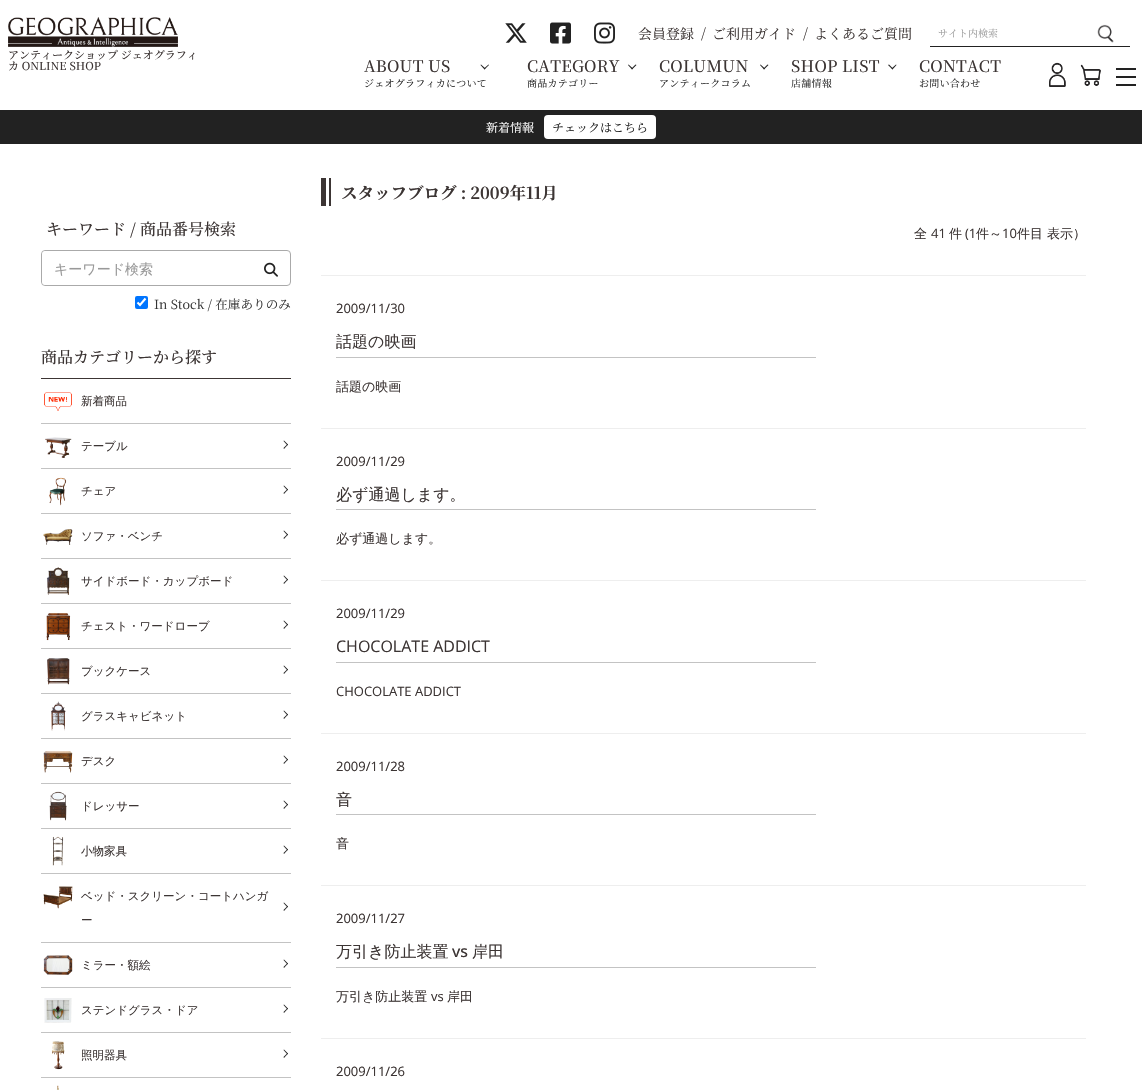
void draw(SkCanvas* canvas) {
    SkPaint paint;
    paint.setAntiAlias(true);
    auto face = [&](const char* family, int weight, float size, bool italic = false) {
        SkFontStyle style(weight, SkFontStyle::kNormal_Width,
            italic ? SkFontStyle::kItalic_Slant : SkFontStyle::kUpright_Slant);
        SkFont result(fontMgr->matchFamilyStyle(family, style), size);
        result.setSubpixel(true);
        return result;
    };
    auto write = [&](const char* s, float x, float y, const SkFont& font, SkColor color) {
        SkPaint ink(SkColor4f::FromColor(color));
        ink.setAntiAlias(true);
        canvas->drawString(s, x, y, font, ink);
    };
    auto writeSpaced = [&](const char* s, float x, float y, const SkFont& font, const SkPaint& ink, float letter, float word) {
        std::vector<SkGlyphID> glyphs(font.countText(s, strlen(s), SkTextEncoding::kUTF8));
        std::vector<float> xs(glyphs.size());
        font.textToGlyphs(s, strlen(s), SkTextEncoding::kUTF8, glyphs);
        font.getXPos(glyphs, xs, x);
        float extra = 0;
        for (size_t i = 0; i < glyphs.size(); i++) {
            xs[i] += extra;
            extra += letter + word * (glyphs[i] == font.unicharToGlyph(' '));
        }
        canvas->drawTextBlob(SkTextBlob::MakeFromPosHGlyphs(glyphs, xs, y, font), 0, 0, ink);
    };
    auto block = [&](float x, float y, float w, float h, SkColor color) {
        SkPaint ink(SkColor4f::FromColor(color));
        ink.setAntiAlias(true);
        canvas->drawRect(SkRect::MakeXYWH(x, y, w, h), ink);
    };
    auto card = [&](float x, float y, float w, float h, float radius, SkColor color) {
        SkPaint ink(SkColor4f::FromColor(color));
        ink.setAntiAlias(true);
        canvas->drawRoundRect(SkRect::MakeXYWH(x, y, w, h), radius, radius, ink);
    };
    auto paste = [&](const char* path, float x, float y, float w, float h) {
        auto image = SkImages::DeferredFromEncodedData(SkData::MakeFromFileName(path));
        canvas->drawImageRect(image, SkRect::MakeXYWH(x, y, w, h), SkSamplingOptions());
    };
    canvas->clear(SK_ColorWHITE);
    paste("pic1.png", 505, 23, 22, 20);
    paste("pic2.png", 550, 22, 21, 22);
    paste("pic3.png", 594, 22, 21, 22);
    auto kFont1 = face("Noto Serif JP", 400, 14);
    write("会員登録", 638, 39, kFont1, SkColorSetRGB(60, 53, 52));
    write("/", 701, 38, kFont1, SkColorSetRGB(60, 53, 52));
    write("ご利用ガイド", 712, 39, kFont1, SkColorSetRGB(60, 53, 52));
    write("/", 803, 38, kFont1, SkColorSetRGB(60, 53, 52));
    write("よくあるご質問", 814, 39, kFont1, SkColorSetRGB(60, 53, 52));
    block(930, 46, 200, 1, SkColorSetRGB(34, 34, 34));
    auto kFont2 = face("Noto Serif JP", 400, 10);
    write("サイト内検索", 938, 37, kFont2, SkColorSetRGB(153, 153, 153));
    paste("pic4.png", 1097, 24, 17, 19);
    paste("pic5.png", 8, 17, 170, 30);
    auto kFont3 = face("Noto Serif JP", 500, 11);
    write("アンティークショップ ジェオグラフィ", 8, 59, kFont3, SkColorSetRGB(60, 53, 52));
    write("カ ONLINE SHOP", 8, 70, kFont3, SkColorSetRGB(60, 53, 52));
    auto kFont4 = face("Noto Serif JP", 500, 16);
    paint.setColor(SkColorSetRGB(60, 53, 52));
    writeSpaced("ABOUT US", 364, 72, kFont4, paint, 0.25f, 0);
    paint.setColor(SkColorSetRGB(34, 34, 34));
    canvas->drawPath(SkPathBuilder().moveTo(489, 65).lineTo(484.5f, 69.5f).lineTo(484, 68.5f).lineTo(488.5f, 64.5f).close().detach(), paint);
    canvas->drawPath(SkPathBuilder().moveTo(485.5f, 68.5f).lineTo(484.5f, 69.5f).lineTo(480.5f, 65).lineTo(481, 64.5f).close().detach(), paint);
    writeSpaced("ジェオグラフィカについて", 364, 87, kFont2, paint, 0.25f, 0);
    paint.setColor(SkColorSetRGB(60, 53, 52));
    writeSpaced("CATEGORY", 527, 72, kFont4, paint, 0.25f, 0);
    paint.setColor(SkColorSetRGB(34, 34, 34));
    canvas->drawPath(SkPathBuilder().moveTo(636.5f, 65).lineTo(632, 69.5f).lineTo(631.5f, 68.5f).lineTo(635.5f, 64.5f).close().detach(), paint);
    canvas->drawPath(SkPathBuilder().moveTo(633, 68.5f).lineTo(632, 69.5f).lineTo(628, 65).lineTo(628.5f, 64.5f).close().detach(), paint);
    writeSpaced("商品カテゴリー", 527, 87, kFont2, paint, 0.25f, 0);
    paint.setColor(SkColorSetRGB(60, 53, 52));
    writeSpaced("COLUMUN", 659, 72, kFont4, paint, 0.25f, 0);
    paint.setColor(SkColorSetRGB(34, 34, 34));
    canvas->drawPath(SkPathBuilder().moveTo(768.5f, 65).lineTo(764, 69.5f).lineTo(763.5f, 68.5f).lineTo(767.5f, 64.5f).close().detach(), paint);
    canvas->drawPath(SkPathBuilder().moveTo(765, 68.5f).lineTo(764, 69.5f).lineTo(760, 65).lineTo(760.5f, 64.5f).close().detach(), paint);
    writeSpaced("アンティークコラム", 659, 87, kFont2, paint, 0.25f, 0);
    paint.setColor(SkColorSetRGB(60, 53, 52));
    writeSpaced("SHOP LIST", 791, 72, kFont4, paint, 0.25f, 0);
    paint.setColor(SkColorSetRGB(34, 34, 34));
    canvas->drawPath(SkPathBuilder().moveTo(896.5f, 65).lineTo(892.5f, 69.5f).lineTo(891.5f, 68.5f).lineTo(896, 64.5f).close().detach(), paint);
    canvas->drawPath(SkPathBuilder().moveTo(893, 68.5f).lineTo(892.5f, 69.5f).lineTo(888, 65).lineTo(889, 64.5f).close().detach(), paint);
    writeSpaced("店舗情報", 791, 87, kFont2, paint, 0.25f, 0);
    paint.setColor(SkColorSetRGB(60, 53, 52));
    writeSpaced("CONTACT", 919, 72, kFont4, paint, 0.25f, 0);
    paint.setColor(SkColorSetRGB(34, 34, 34));
    writeSpaced("お問い合わせ", 919, 87, kFont2, paint, 0.25f, 0);
    paste("pic6.png", 1049, 62, 17, 25);
    paste("pic7.png", 1080, 64, 21, 22);
    block(1116, 68, 20, 2, SkColorSetRGB(34, 34, 34));
    block(1116, 76, 20, 2, SkColorSetRGB(34, 34, 34));
    block(1116, 84, 20, 2, SkColorSetRGB(34, 34, 34));
    block(0, 110, 1142, 34, SkColorSetRGB(34, 34, 34));
    auto kFont5 = face("Noto Serif JP", 400, 12);
    write("新着情報", 486, 132, kFont5, SK_ColorWHITE);
    card(544, 115, 112, 24, 4, SK_ColorWHITE);
    write("チェックはこちら", 552, 132, kFont5, SkColorSetRGB(34, 34, 34));
    write("キーワード / 商品番号検索", 46, 235, kFont4, SkColorSetRGB(60, 53, 52));
    paint.setStyle(SkPaint::kStroke_Style);
    paint.setStrokeWidth(1);
    paint.setColor(SkColorSetRGB(170, 170, 170));
    canvas->drawRoundRect(SkRect::MakeXYWH(41.5f, 250.5f, 249, 35), 3.5f, 3.5f, paint);
    card(42, 251, 218, 34, 4, SK_ColorWHITE);
    auto kFont6 = face("WenQuanYi Zen Hei", 500, 14);
    write("キーワード検索", 54, 274, kFont6, SkColorSetRGB(153, 153, 153));
    paste("pic8.png", 264, 262, 14, 15);
    card(135, 296, 13, 13, 2, SkColorSetRGB(0, 117, 255));
    paint.setStrokeWidth(2.1f);
    paint.setColor(SK_ColorWHITE);
    canvas->drawPath(SkPathBuilder().moveTo(137.5f, 302.5f).lineTo(140, 305).lineTo(145.5f, 298.5f).detach(), paint);
    auto kFont7 = face("Noto Serif JP", 400, 12.6f);
    write("In Stock / 在庫ありのみ", 154, 309, kFont7, SkColorSetRGB(51, 51, 51));
    block(41, 378, 250, 1, SkColorSetRGB(60, 53, 52));
    write("商品カテゴリーから探す", 41, 363, kFont4, SkColorSetRGB(60, 53, 52));
    block(41, 423, 250, 1, SkColorSetRGB(195, 195, 195));
    paste("pic9.png", 44, 392, 28, 19);
    auto kFont8 = face("WenQuanYi Zen Hei", 500, 11.5f);
    write("新着商品", 81, 405, kFont8, SkColorSetRGB(60, 53, 52));
    block(41, 468, 250, 1, SkColorSetRGB(195, 195, 195));
    paste("pic10.png", 45, 437, 27, 21);
    write("テーブル", 81, 450, kFont8, SkColorSetRGB(60, 53, 52));
    paint.setStyle(SkPaint::kFill_Style);
    paint.setColor(SkColorSetRGB(34, 34, 34));
    canvas->drawPath(SkPathBuilder().moveTo(284, 440.5f).lineTo(288, 444.5f).lineTo(287.5f, 445.5f).lineTo(283.5f, 441).close().detach(), paint);
    canvas->drawPath(SkPathBuilder().moveTo(287.5f, 444).lineTo(288, 444.5f).lineTo(284, 449).lineTo(283.5f, 448).close().detach(), paint);
    block(41, 513, 250, 1, SkColorSetRGB(195, 195, 195));
    paste("pic11.png", 49, 477, 18, 29);
    write("チェア", 81, 495, kFont8, SkColorSetRGB(60, 53, 52));
    canvas->drawPath(SkPathBuilder().moveTo(284, 485.5f).lineTo(288, 489.5f).lineTo(287.5f, 490.5f).lineTo(283.5f, 486).close().detach(), paint);
    canvas->drawPath(SkPathBuilder().moveTo(287.5f, 489).lineTo(288, 489.5f).lineTo(284, 494).lineTo(283.5f, 493).close().detach(), paint);
    block(41, 558, 250, 1, SkColorSetRGB(195, 195, 195));
    paste("pic12.png", 43, 529, 30, 16);
    write("ソファ・ベンチ", 81, 540, kFont8, SkColorSetRGB(60, 53, 52));
    canvas->drawPath(SkPathBuilder().moveTo(284, 530.5f).lineTo(288, 534.5f).lineTo(287.5f, 535.5f).lineTo(283.5f, 531).close().detach(), paint);
    canvas->drawPath(SkPathBuilder().moveTo(287.5f, 534).lineTo(288, 534.5f).lineTo(284, 539).lineTo(283.5f, 538).close().detach(), paint);
    block(41, 603, 250, 1, SkColorSetRGB(195, 195, 195));
    paste("pic13.png", 46, 567, 24, 28);
    write("サイドボード・カップボード", 81, 585, kFont8, SkColorSetRGB(60, 53, 52));
    canvas->drawPath(SkPathBuilder().moveTo(284, 575.5f).lineTo(288, 579.5f).lineTo(287.5f, 580.5f).lineTo(283.5f, 576).close().detach(), paint);
    canvas->drawPath(SkPathBuilder().moveTo(287.5f, 579).lineTo(288, 579.5f).lineTo(284, 584).lineTo(283.5f, 583).close().detach(), paint);
    block(41, 648, 250, 1, SkColorSetRGB(195, 195, 195));
    paste("pic14.png", 46, 613, 25, 28);
    write("チェスト・ワードローブ", 81, 630, kFont8, SkColorSetRGB(60, 53, 52));
    canvas->drawPath(SkPathBuilder().moveTo(284, 620.5f).lineTo(288, 624.5f).lineTo(287.5f, 625.5f).lineTo(283.5f, 621).close().detach(), paint);
    canvas->drawPath(SkPathBuilder().moveTo(287.5f, 624).lineTo(288, 624.5f).lineTo(284, 629).lineTo(283.5f, 628).close().detach(), paint);
    block(41, 693, 250, 1, SkColorSetRGB(195, 195, 195));
    paste("pic15.png", 47, 658, 23, 27);
    write("ブックケース", 81, 675, kFont8, SkColorSetRGB(60, 53, 52));
    canvas->drawPath(SkPathBuilder().moveTo(284, 665.5f).lineTo(288, 669.5f).lineTo(287.5f, 670.5f).lineTo(283.5f, 666).close().detach(), paint);
    canvas->drawPath(SkPathBuilder().moveTo(287.5f, 669).lineTo(288, 669.5f).lineTo(284, 674).lineTo(283.5f, 673).close().detach(), paint);
    block(41, 738, 250, 1, SkColorSetRGB(195, 195, 195));
    paste("pic16.png", 51, 701, 15, 30);
    write("グラスキャビネット", 81, 720, kFont8, SkColorSetRGB(60, 53, 52));
    canvas->drawPath(SkPathBuilder().moveTo(284, 710.5f).lineTo(288, 714.5f).lineTo(287.5f, 715.5f).lineTo(283.5f, 711).close().detach(), paint);
    canvas->drawPath(SkPathBuilder().moveTo(287.5f, 714).lineTo(288, 714.5f).lineTo(284, 719).lineTo(283.5f, 718).close().detach(), paint);
    block(41, 783, 250, 1, SkColorSetRGB(195, 195, 195));
    paste("pic17.png", 43, 751, 30, 22);
    write("デスク", 81, 765, kFont8, SkColorSetRGB(60, 53, 52));
    canvas->drawPath(SkPathBuilder().moveTo(284, 755.5f).lineTo(288, 759.5f).lineTo(287.5f, 760.5f).lineTo(283.5f, 756).close().detach(), paint);
    canvas->drawPath(SkPathBuilder().moveTo(287.5f, 759).lineTo(288, 759.5f).lineTo(284, 764).lineTo(283.5f, 763).close().detach(), paint);
    block(41, 828, 250, 1, SkColorSetRGB(195, 195, 195));
    paste("pic18.png", 49, 791, 18, 30);
    write("ドレッサー", 81, 810, kFont8, SkColorSetRGB(60, 53, 52));
    canvas->drawPath(SkPathBuilder().moveTo(284, 800.5f).lineTo(288, 804.5f).lineTo(287.5f, 805.5f).lineTo(283.5f, 801).close().detach(), paint);
    canvas->drawPath(SkPathBuilder().moveTo(287.5f, 804).lineTo(288, 804.5f).lineTo(284, 809).lineTo(283.5f, 808).close().detach(), paint);
    block(41, 873, 250, 1, SkColorSetRGB(195, 195, 195));
    paste("pic19.png", 52, 836, 12, 30);
    write("小物家具", 81, 855, kFont8, SkColorSetRGB(60, 53, 52));
    canvas->drawPath(SkPathBuilder().moveTo(284, 845.5f).lineTo(288, 849.5f).lineTo(287.5f, 850.5f).lineTo(283.5f, 846).close().detach(), paint);
    canvas->drawPath(SkPathBuilder().moveTo(287.5f, 849).lineTo(288, 849.5f).lineTo(284, 854).lineTo(283.5f, 853).close().detach(), paint);
    block(41, 942, 250, 1, SkColorSetRGB(195, 195, 195));
    paste("pic20.png", 43, 886, 30, 23);
    write("ベッド・スクリーン・コートハンガ", 81, 900, kFont8, SkColorSetRGB(60, 53, 52));
    write("ー", 81, 924, kFont8, SkColorSetRGB(60, 53, 52));
    canvas->drawPath(SkPathBuilder().moveTo(284, 902.5f).lineTo(288, 906.5f).lineTo(287.5f, 907.5f).lineTo(283.5f, 903).close().detach(), paint);
    canvas->drawPath(SkPathBuilder().moveTo(287.5f, 906).lineTo(288, 906.5f).lineTo(284, 911).lineTo(283.5f, 910).close().detach(), paint);
    block(41, 987, 250, 1, SkColorSetRGB(195, 195, 195));
    paste("pic21.png", 43, 955, 30, 20);
    write("ミラー・額絵", 81, 969, kFont8, SkColorSetRGB(60, 53, 52));
    canvas->drawPath(SkPathBuilder().moveTo(284, 959.5f).lineTo(288, 963.5f).lineTo(287.5f, 964.5f).lineTo(283.5f, 960).close().detach(), paint);
    canvas->drawPath(SkPathBuilder().moveTo(287.5f, 963).lineTo(288, 963.5f).lineTo(284, 968).lineTo(283.5f, 967).close().detach(), paint);
    block(41, 1032, 250, 1, SkColorSetRGB(195, 195, 195));
    paste("pic22.png", 44, 998, 28, 25);
    write("ステンドグラス・ドア", 81, 1014, kFont8, SkColorSetRGB(60, 53, 52));
    canvas->drawPath(SkPathBuilder().moveTo(284, 1004.5f).lineTo(288, 1008.5f).lineTo(287.5f, 1009.5f).lineTo(283.5f, 1005).close().detach(), paint);
    canvas->drawPath(SkPathBuilder().moveTo(287.5f, 1008).lineTo(288, 1008.5f).lineTo(284, 1013).lineTo(283.5f, 1012).close().detach(), paint);
    block(41, 1077, 250, 1, SkColorSetRGB(195, 195, 195));
    paste("pic23.png", 51, 1041, 14, 29);
    write("照明器具", 81, 1059, kFont8, SkColorSetRGB(60, 53, 52));
    canvas->drawPath(SkPathBuilder().moveTo(284, 1049.5f).lineTo(288, 1053.5f).lineTo(287.5f, 1054.5f).lineTo(283.5f, 1050).close().detach(), paint);
    canvas->drawPath(SkPathBuilder().moveTo(287.5f, 1053).lineTo(288, 1053.5f).lineTo(284, 1058).lineTo(283.5f, 1057).close().detach(), paint);
    paste("pic24.png", 56, 1085, 3, 5);
    block(329, 178, 2, 28, SkColorSetRGB(60, 53, 52));
    block(321, 178, 5, 28, SkColorSetRGB(60, 53, 52));
    auto kFont9 = face("Noto Serif JP", 700, 16.5f);
    write("スタッフブログ : 2009年11月", 341, 199, kFont9, SkColorSetRGB(60, 53, 52));
    auto kFont10 = face("WenQuanYi Zen Hei", 500, 13);
    write("全", 914, 238, kFont10, SkColorSetRGB(60, 53, 52));
    auto kFont11 = face("Open Sans", 400, 13);
    write("41", 931, 238, kFont11, SkColorSetRGB(60, 53, 52));
    write("件", 949, 238, kFont10, SkColorSetRGB(60, 53, 52));
    write("(1", 965, 238, kFont11, SkColorSetRGB(60, 53, 52));
    write("件～", 976, 238, kFont10, SkColorSetRGB(60, 53, 52));
    write("10", 1002, 238, kFont11, SkColorSetRGB(60, 53, 52));
    write("件目 表示）", 1017, 238, kFont10, SkColorSetRGB(60, 53, 52));
    block(321, 275, 765, 1, SkColorSetRGB(238, 238, 238));
    write("2009/11/30", 336, 313, kFont11, SkColorSetRGB(60, 53, 52));
    block(336, 357, 480, 1, SkColorSetRGB(195, 195, 195));
    auto kFont12 = face("WenQuanYi Zen Hei", 500, 16);
    write("話題の映画", 336, 347, kFont12, SkColorSetRGB(60, 53, 52));
    write("話題の映画", 336, 391, kFont10, SkColorSetRGB(60, 53, 52));
    block(321, 428, 765, 1, SkColorSetRGB(238, 238, 238));
    write("2009/11/29", 336, 466, kFont11, SkColorSetRGB(60, 53, 52));
    block(336, 509, 480, 1, SkColorSetRGB(195, 195, 195));
    write("必ず通過します。", 336, 500, kFont12, SkColorSetRGB(60, 53, 52));
    write("必ず通過します。", 336, 543, kFont10, SkColorSetRGB(60, 53, 52));
    block(321, 580, 765, 1, SkColorSetRGB(238, 238, 238));
    write("2009/11/29", 336, 618, kFont11, SkColorSetRGB(60, 53, 52));
    block(336, 662, 480, 1, SkColorSetRGB(195, 195, 195));
    auto kFont13 = face("Open Sans", 400, 16);
    write("CHOCOLATE ADDICT", 336, 652, kFont13, SkColorSetRGB(60, 53, 52));
    write("CHOCOLATE ADDICT", 336, 696, kFont11, SkColorSetRGB(60, 53, 52));
    block(321, 733, 765, 1, SkColorSetRGB(238, 238, 238));
    write("2009/11/28", 336, 771, kFont11, SkColorSetRGB(60, 53, 52));
    block(336, 814, 480, 1, SkColorSetRGB(195, 195, 195));
    write("音", 336, 805, kFont12, SkColorSetRGB(60, 53, 52));
    write("音", 336, 848, kFont10, SkColorSetRGB(60, 53, 52));
    block(321, 885, 765, 1, SkColorSetRGB(238, 238, 238));
    write("2009/11/27", 336, 923, kFont11, SkColorSetRGB(60, 53, 52));
    block(336, 967, 480, 1, SkColorSetRGB(195, 195, 195));
    write("万引き防止装置", 336, 957, kFont12, SkColorSetRGB(60, 53, 52));
    auto kFont14 = face("Open Sans", 500, 16);
    write("vs", 452, 957, kFont14, SkColorSetRGB(60, 53, 52));
    write("岸田", 472, 957, kFont12, SkColorSetRGB(60, 53, 52));
    write("万引き防止装置", 336, 1001, kFont10, SkColorSetRGB(60, 53, 52));
    write("vs", 431, 1001, kFont11, SkColorSetRGB(60, 53, 52));
    write("岸田", 447, 1001, kFont10, SkColorSetRGB(60, 53, 52));
    block(321, 1038, 765, 1, SkColorSetRGB(238, 238, 238));
    write("2009/11/26", 336, 1076, kFont11, SkColorSetRGB(60, 53, 52));
}
